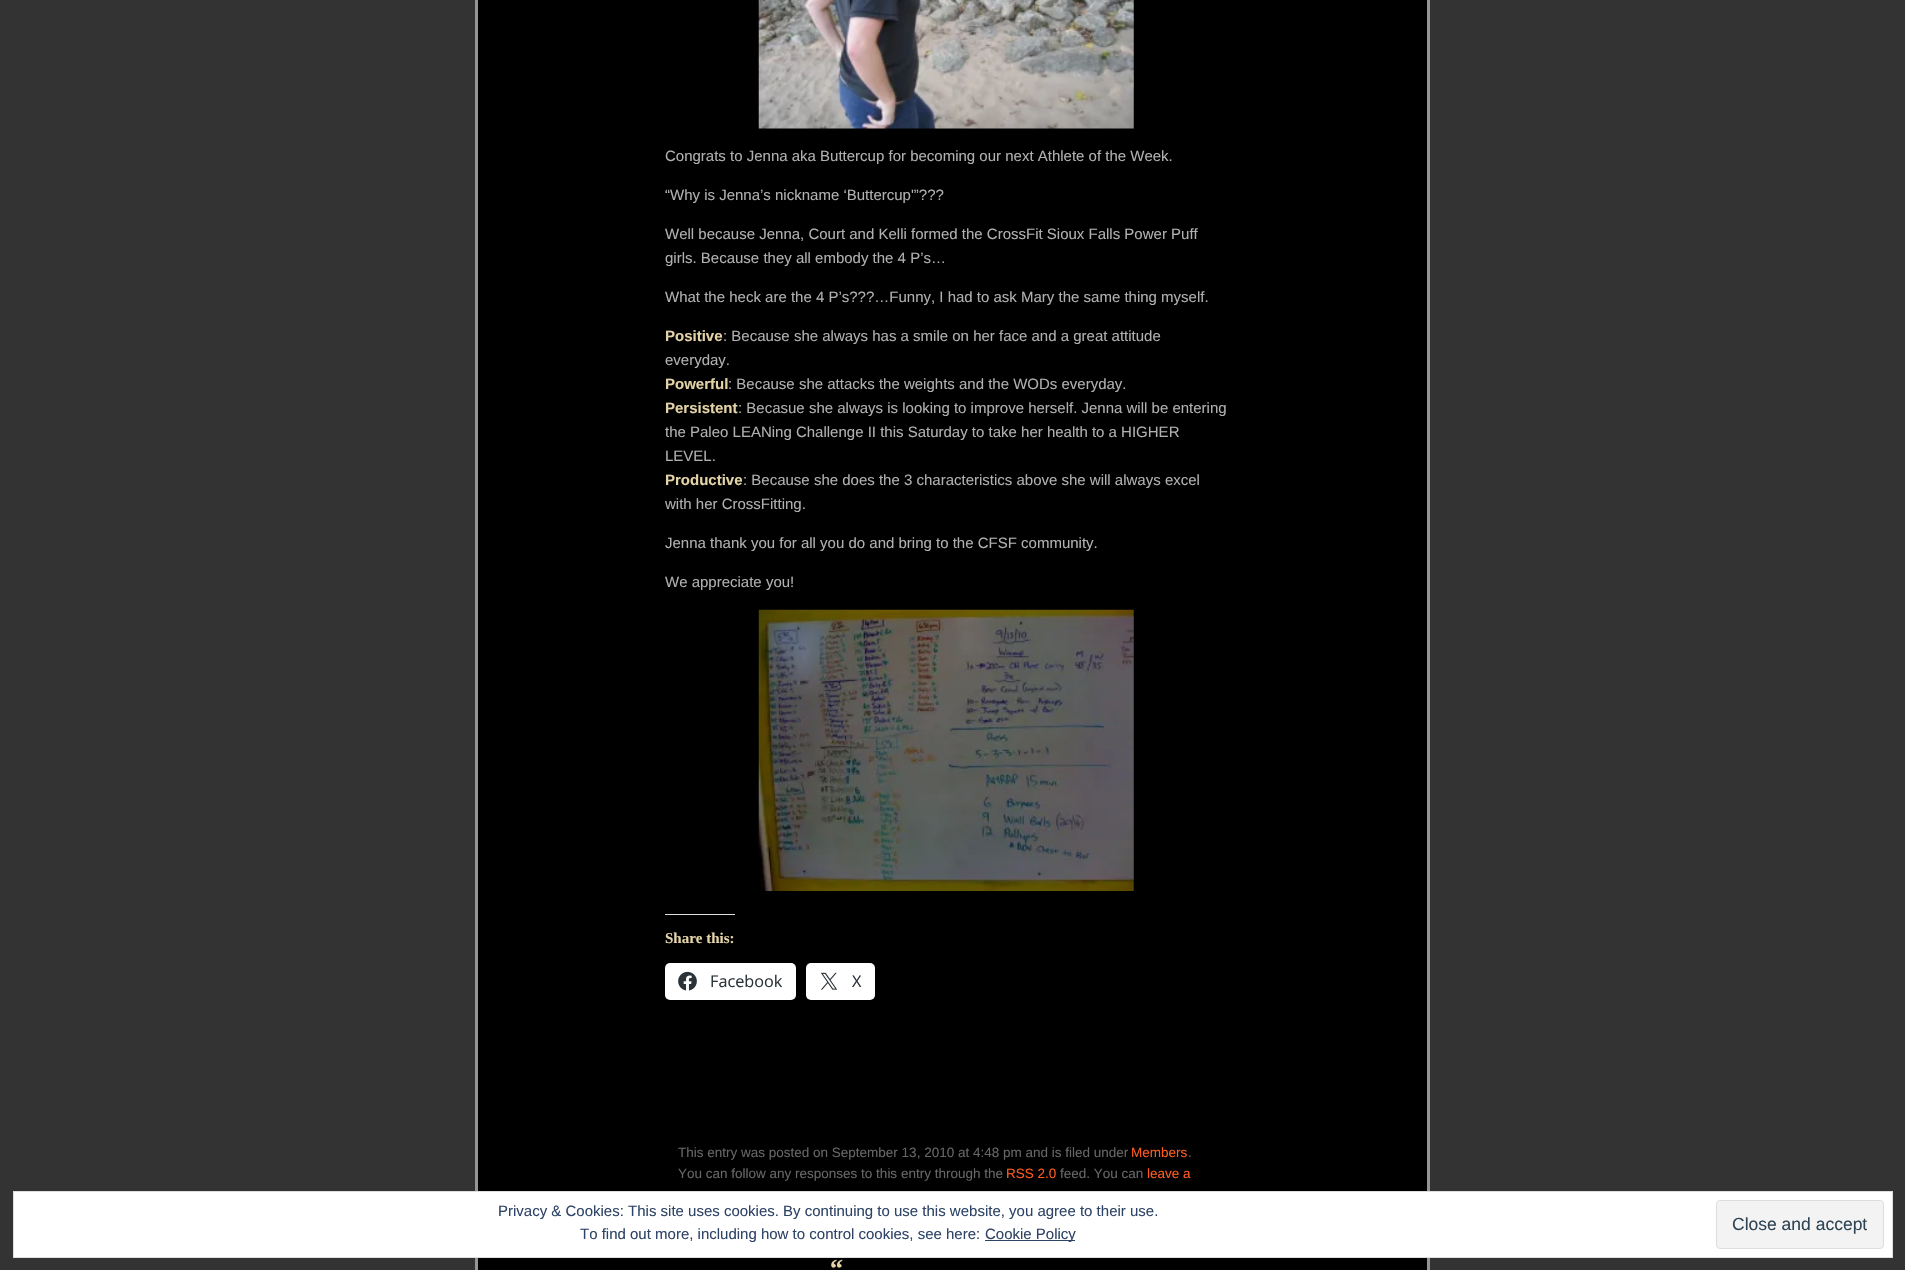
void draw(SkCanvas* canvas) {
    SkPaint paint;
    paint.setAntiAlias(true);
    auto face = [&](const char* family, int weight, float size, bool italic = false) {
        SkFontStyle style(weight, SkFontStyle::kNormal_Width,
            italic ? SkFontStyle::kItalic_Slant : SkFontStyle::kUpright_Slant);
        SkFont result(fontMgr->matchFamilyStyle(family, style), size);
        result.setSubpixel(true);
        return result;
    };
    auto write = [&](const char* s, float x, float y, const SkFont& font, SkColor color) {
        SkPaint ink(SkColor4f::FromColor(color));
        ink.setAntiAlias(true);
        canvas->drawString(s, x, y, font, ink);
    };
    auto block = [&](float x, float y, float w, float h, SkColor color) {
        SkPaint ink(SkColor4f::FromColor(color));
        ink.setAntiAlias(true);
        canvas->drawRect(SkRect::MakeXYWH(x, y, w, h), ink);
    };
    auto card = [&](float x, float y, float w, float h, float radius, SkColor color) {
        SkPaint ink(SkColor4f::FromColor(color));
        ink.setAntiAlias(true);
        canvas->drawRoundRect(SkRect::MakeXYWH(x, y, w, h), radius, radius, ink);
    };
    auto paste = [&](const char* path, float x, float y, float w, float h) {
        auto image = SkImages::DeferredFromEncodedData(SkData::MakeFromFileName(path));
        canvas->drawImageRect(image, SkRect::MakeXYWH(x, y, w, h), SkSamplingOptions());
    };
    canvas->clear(SkColorSetRGB(51, 51, 51));
    paint.setColor(SK_ColorBLACK);
    canvas->drawRect(SkRect::MakeXYWH(476.5f, -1.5f, 952, 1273), paint);
    paint.setStyle(SkPaint::kStroke_Style);
    paint.setStrokeWidth(3);
    paint.setColor(SkColorSetRGB(149, 149, 150));
    canvas->drawRect(SkRect::MakeXYWH(476.5f, -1.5f, 952, 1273), paint);
    paste("pic1.png", 758, 0, 376, 129);
    auto kFont1 = face("Liberation Sans", 400, 15);
    write("Congrats to Jenna aka Buttercup for becoming our next Athlete of the Week.", 665, 161, kFont1, SkColorSetRGB(176, 176, 176));
    write("“Why is Jenna’s nickname ‘Buttercup'”?\077?", 665, 200, kFont1, SkColorSetRGB(176, 176, 176));
    write("Well because Jenna, Court and Kelli formed the CrossFit Sioux Falls Power Puff", 665, 239, kFont1, SkColorSetRGB(176, 176, 176));
    write("girls. Because they all embody the 4 P’s…", 665, 263, kFont1, SkColorSetRGB(176, 176, 176));
    write("What the heck are the 4 P’s?\077?…Funny, I had to ask Mary the same thing myself.", 665, 302, kFont1, SkColorSetRGB(176, 176, 176));
    auto kFont2 = face("Liberation Sans", 700, 15);
    write("Positive", 665, 341, kFont2, SkColorSetRGB(228, 211, 166));
    write(": Because she always has a smile on her face and a great attitude", 723, 341, kFont1, SkColorSetRGB(176, 176, 176));
    write("everyday.", 665, 365, kFont1, SkColorSetRGB(176, 176, 176));
    write("Powerful", 665, 389, kFont2, SkColorSetRGB(228, 211, 166));
    write(": Because she attacks the weights and the WODs everyday.", 728, 389, kFont1, SkColorSetRGB(176, 176, 176));
    write("Persistent", 665, 413, kFont2, SkColorSetRGB(228, 211, 166));
    write(": Becasue she always is looking to improve herself. Jenna will be entering", 738, 413, kFont1, SkColorSetRGB(176, 176, 176));
    write("the Paleo LEANing Challenge II this Saturday to take her health to a HIGHER", 665, 437, kFont1, SkColorSetRGB(176, 176, 176));
    write("LEVEL.", 665, 461, kFont1, SkColorSetRGB(176, 176, 176));
    write("Productive", 665, 485, kFont2, SkColorSetRGB(228, 211, 166));
    write(": Because she does the 3 characteristics above she will always excel", 743, 485, kFont1, SkColorSetRGB(176, 176, 176));
    write("with her CrossFitting.", 665, 509, kFont1, SkColorSetRGB(176, 176, 176));
    write("Jenna thank you for all you do and bring to the CFSF community.", 665, 548, kFont1, SkColorSetRGB(176, 176, 176));
    write("We appreciate you!", 665, 587, kFont1, SkColorSetRGB(176, 176, 176));
    paste("pic2.png", 758, 609, 376, 282);
    block(665, 914, 70, 1, SkColorSetRGB(220, 220, 222));
    auto kFont3 = face("Liberation Serif", 700, 15);
    write("Share this:", 665, 943, kFont3, SkColorSetRGB(228, 211, 166));
    card(665, 963, 131, 37, 5, SK_ColorWHITE);
    paste("pic3.png", 678, 971, 19, 20);
    auto kFont4 = face("Open Sans", 400, 16.25f);
    write("Facebook", 710, 987, kFont4, SkColorSetRGB(44, 51, 56));
    card(806, 963, 69, 37, 5, SK_ColorWHITE);
    paste("pic4.png", 820, 972, 18, 18);
    write("X", 852, 987, kFont4, SkColorSetRGB(44, 51, 56));
    auto kFont5 = face("Liberation Sans", 400, 13.5f);
    write("This entry was posted on September 13, 2010 at 4:48 pm and is filed under", 678, 1157, kFont5, SkColorSetRGB(102, 102, 102));
    write("Members", 1131, 1157, kFont5, SkColorSetRGB(253, 90, 30));
    write(".", 1188, 1157, kFont5, SkColorSetRGB(102, 102, 102));
    write("You can follow any responses to this entry through the", 678, 1178, kFont5, SkColorSetRGB(102, 102, 102));
    write("RSS 2.0", 1006, 1178, kFont5, SkColorSetRGB(253, 90, 30));
    write("feed. You can", 1060, 1178, kFont5, SkColorSetRGB(102, 102, 102));
    write("leave a", 1147, 1178, kFont5, SkColorSetRGB(253, 90, 30));
    auto kFont6 = face("Liberation Serif", 700, 26);
    write("“", 830, 1277, kFont6, SkColorSetRGB(228, 211, 166));
    paint.setStyle(SkPaint::kFill_Style);
    paint.setColor(SK_ColorWHITE);
    canvas->drawRect(SkRect::MakeXYWH(13.5f, 1191.5f, 1879, 66), paint);
    paint.setStyle(SkPaint::kStroke_Style);
    paint.setStrokeWidth(1);
    paint.setColor(SkColorSetRGB(222, 222, 222));
    canvas->drawRect(SkRect::MakeXYWH(13.5f, 1191.5f, 1879, 66), paint);
    write("Privacy & Cookies: This site uses cookies. By continuing to use this website, you agree to their use.", 498, 1216, kFont1, SkColorSetRGB(46, 68, 103));
    paint.setStyle(SkPaint::kFill_Style);
    paint.setColor(SkColorSetRGB(243, 243, 243));
    canvas->drawRoundRect(SkRect::MakeXYWH(1716.5f, 1200.5f, 167, 48), 3.5f, 3.5f, paint);
    paint.setStyle(SkPaint::kStroke_Style);
    paint.setColor(SkColorSetRGB(222, 222, 222));
    canvas->drawRoundRect(SkRect::MakeXYWH(1716.5f, 1200.5f, 167, 48), 3.5f, 3.5f, paint);
    auto kFont7 = face("Liberation Sans", 400, 17.5f);
    write("Close and accept", 1732, 1230, kFont7, SkColorSetRGB(46, 68, 83));
    write("To find out more, including how to control cookies, see here:", 580, 1239, kFont1, SkColorSetRGB(46, 68, 103));
    block(985, 1240, 90, 1, SkColorSetRGB(46, 68, 103));
    write("Cookie Policy", 985, 1239, kFont1, SkColorSetRGB(46, 68, 103));
}
